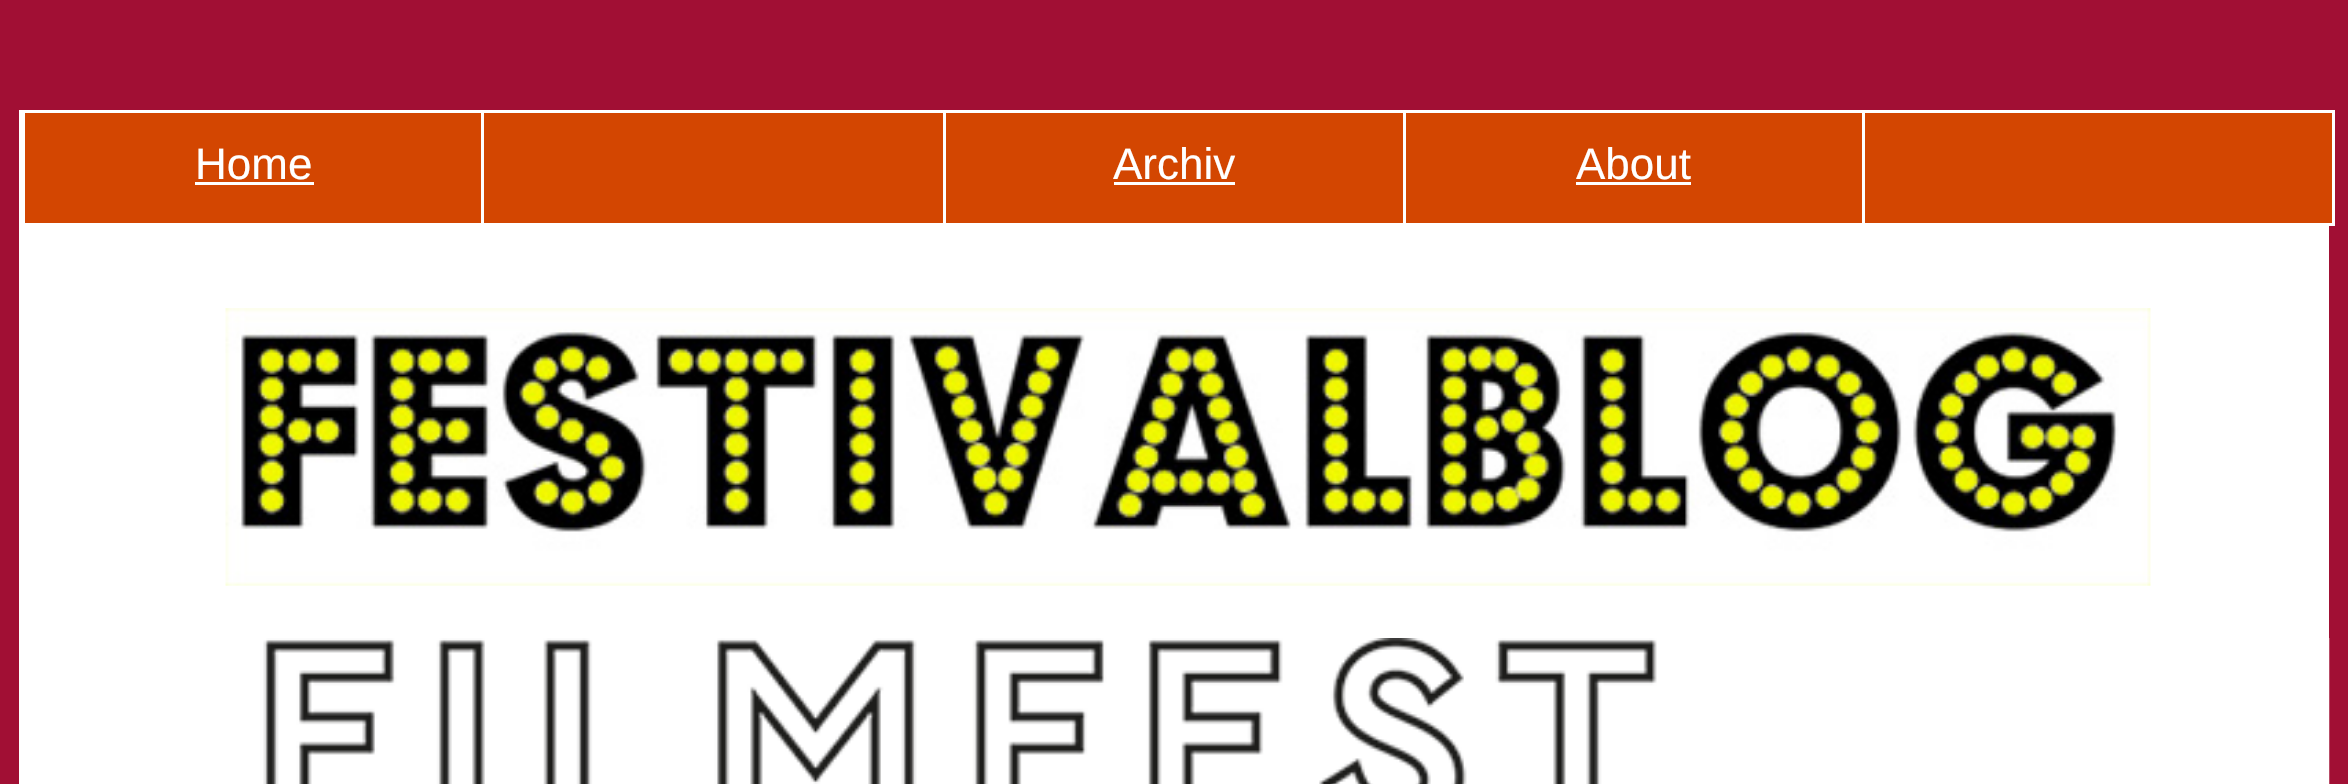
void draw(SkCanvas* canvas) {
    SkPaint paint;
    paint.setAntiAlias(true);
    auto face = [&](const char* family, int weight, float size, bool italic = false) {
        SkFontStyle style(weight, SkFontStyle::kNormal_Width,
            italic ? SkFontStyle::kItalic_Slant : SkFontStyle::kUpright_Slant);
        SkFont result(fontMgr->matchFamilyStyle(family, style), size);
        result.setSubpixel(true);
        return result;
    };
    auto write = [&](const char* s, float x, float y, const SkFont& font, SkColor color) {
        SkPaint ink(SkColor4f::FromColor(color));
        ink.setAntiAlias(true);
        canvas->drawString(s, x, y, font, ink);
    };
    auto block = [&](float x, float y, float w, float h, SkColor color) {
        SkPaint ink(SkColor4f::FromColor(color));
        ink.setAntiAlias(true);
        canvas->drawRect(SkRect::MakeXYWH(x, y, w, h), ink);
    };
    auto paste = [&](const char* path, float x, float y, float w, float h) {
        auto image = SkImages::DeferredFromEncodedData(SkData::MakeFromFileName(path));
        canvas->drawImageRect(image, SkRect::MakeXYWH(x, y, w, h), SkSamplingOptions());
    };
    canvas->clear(SkColorSetRGB(161, 15, 52));
    block(19, 226, 2310, 558, SK_ColorWHITE);
    block(25, 113, 2307, 110, SkColorSetRGB(211, 70, 1));
    paint.setStyle(SkPaint::kStroke_Style);
    paint.setStrokeWidth(3);
    paint.setColor(SK_ColorWHITE);
    canvas->drawRect(SkRect::MakeXYWH(20.5f, 111.5f, 2313, 113), paint);
    block(22, 113, 3, 110, SK_ColorWHITE);
    auto kFont1 = face("Liberation Sans", 400, 44);
    write("Home", 195, 179, kFont1, SK_ColorWHITE);
    block(195, 182, 119, 3, SK_ColorWHITE);
    block(481, 113, 3, 110, SK_ColorWHITE);
    block(943, 113, 3, 110, SK_ColorWHITE);
    write("Archiv", 1113, 179, kFont1, SK_ColorWHITE);
    block(1114, 182, 121, 3, SK_ColorWHITE);
    block(1403, 113, 3, 110, SK_ColorWHITE);
    write("About", 1576, 179, kFont1, SK_ColorWHITE);
    block(1576, 182, 115, 3, SK_ColorWHITE);
    block(1862, 113, 3, 110, SK_ColorWHITE);
    paste("pic1.png", 225, 308, 1926, 278);
    paste("pic2.png", 263, 638, 2067, 146);
}
